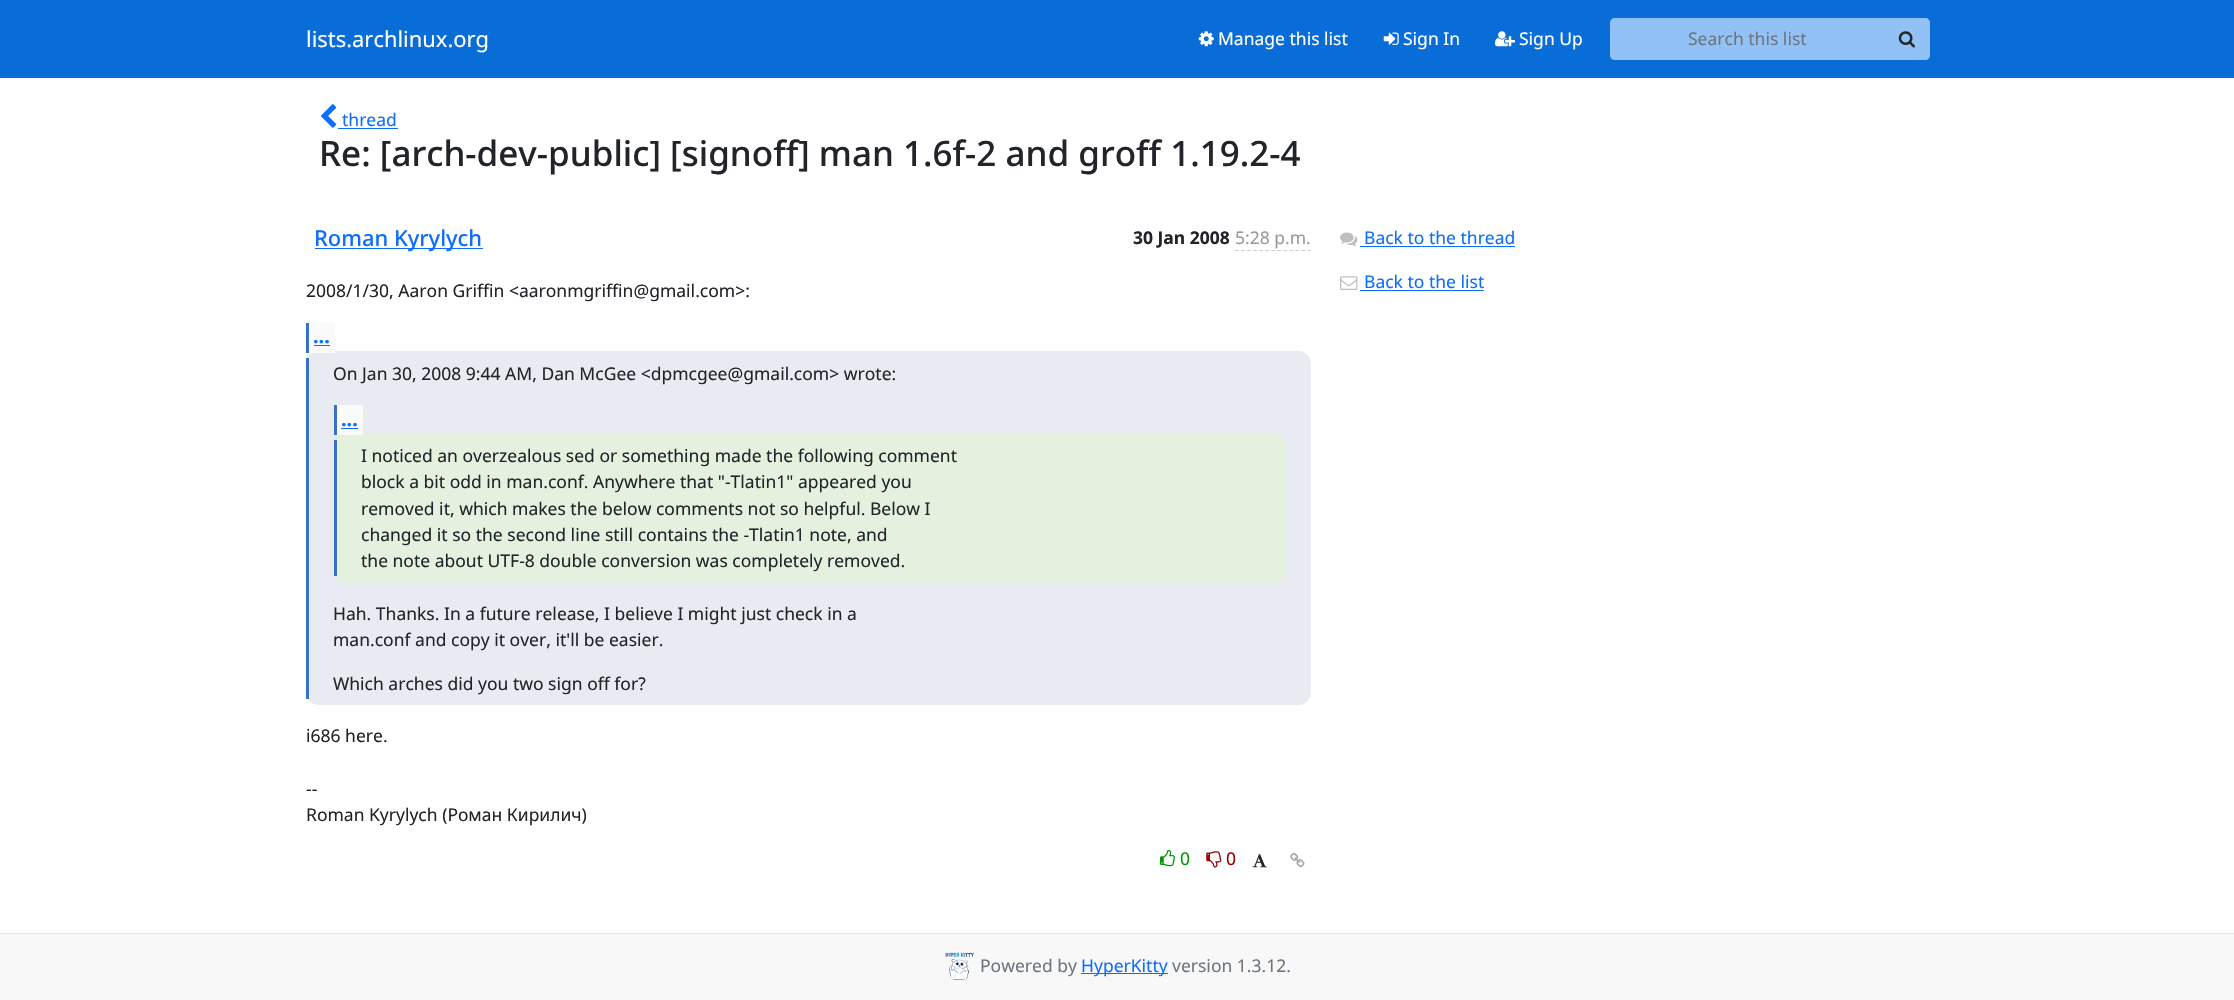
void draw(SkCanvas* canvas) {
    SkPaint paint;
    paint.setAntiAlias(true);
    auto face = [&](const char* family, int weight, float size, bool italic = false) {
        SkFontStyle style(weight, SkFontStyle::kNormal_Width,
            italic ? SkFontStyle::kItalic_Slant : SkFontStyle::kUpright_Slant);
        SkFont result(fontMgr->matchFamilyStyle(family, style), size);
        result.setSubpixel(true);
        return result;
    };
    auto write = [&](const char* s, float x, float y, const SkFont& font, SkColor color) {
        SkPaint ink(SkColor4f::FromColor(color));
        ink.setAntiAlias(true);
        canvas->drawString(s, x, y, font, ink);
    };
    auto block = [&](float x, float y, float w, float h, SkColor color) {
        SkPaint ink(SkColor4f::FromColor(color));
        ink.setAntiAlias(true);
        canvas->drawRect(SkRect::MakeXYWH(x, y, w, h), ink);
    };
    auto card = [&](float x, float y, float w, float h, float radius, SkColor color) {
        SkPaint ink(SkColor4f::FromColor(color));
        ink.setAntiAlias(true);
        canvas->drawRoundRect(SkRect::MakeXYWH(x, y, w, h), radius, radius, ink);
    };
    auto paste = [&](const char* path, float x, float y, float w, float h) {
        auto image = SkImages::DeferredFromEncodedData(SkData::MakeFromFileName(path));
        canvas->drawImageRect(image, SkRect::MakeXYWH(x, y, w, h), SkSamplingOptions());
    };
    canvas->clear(SK_ColorWHITE);
    block(0, 0, 2234, 78, SkColorSetRGB(8, 109, 215));
    auto kFont1 = face("Noto Sans", 400, 21.9f);
    write("lists.archlinux.org", 306, 47, kFont1, SK_ColorWHITE);
    paste("pic1.png", 1198, 31, 16, 16);
    auto kFont2 = face("Noto Sans", 400, 17.5f);
    write("Manage this list", 1218, 45, kFont2, SK_ColorWHITE);
    paste("pic2.png", 1383, 32, 16, 13);
    write("Sign In", 1403, 45, kFont2, SK_ColorWHITE);
    paste("pic3.png", 1495, 31, 20, 16);
    write("Sign Up", 1519, 45, kFont2, SK_ColorWHITE);
    paint.setColor(SkColorSetRGB(146, 194, 245));
    canvas->drawPath(SkPathBuilder().moveTo(1615, 18).lineTo(1886, 18).lineTo(1886, 60).lineTo(1615, 60).cubicTo(1612, 60, 1610, 58, 1610, 55).lineTo(1610, 23).cubicTo(1610, 20, 1612, 18, 1615, 18).close().detach(), paint);
    write("Search this list", 1688, 45, kFont2, SkColorSetRGB(108, 117, 125));
    canvas->drawPath(SkPathBuilder().moveTo(1885, 18).lineTo(1925, 18).cubicTo(1928, 18, 1930, 20, 1930, 23).lineTo(1930, 55).cubicTo(1930, 58, 1928, 60, 1925, 60).lineTo(1885, 60).close().detach(), paint);
    paste("pic4.png", 1898, 31, 17, 17);
    paste("pic5.png", 321, 104, 16, 24);
    write("thread", 342, 126, kFont2, SkColorSetRGB(13, 110, 253));
    block(338, 128, 60, 1, SkColorSetRGB(13, 110, 253));
    auto kFont3 = face("Noto Sans", 500, 35);
    write("Re: [arch-dev-public] [signoff] man 1.6f-2 and groff 1.19.2-4", 319, 166, kFont3, SkColorSetRGB(33, 37, 41));
    block(315, 248, 168, 1, SkColorSetRGB(13, 110, 253));
    auto kFont4 = face("Noto Sans", 500, 21.9f);
    write("Roman Kyrylych", 314, 246, kFont4, SkColorSetRGB(13, 110, 253));
    auto kFont5 = face("Noto Sans", 700, 17.5f);
    write("30 Jan 2008", 1133, 244, kFont5, SkColorSetRGB(33, 37, 41));
    write("5:28 p.m.", 1235, 244, kFont2, SkColorSetRGB(153, 153, 153));
    paint.setStyle(SkPaint::kStroke_Style);
    paint.setStrokeWidth(1.2f);
    paint.setColor(SkColorSetRGB(204, 204, 204));
    paint.setPathEffect(SkDashPathEffect::Make({{3.75f, 2.29f}}, 0));
    canvas->drawPath(SkPathBuilder().moveTo(1235, 250.5f).lineTo(1311, 250.5f).detach(), paint);
    paint.setPathEffect(nullptr);
    write("2008/1/30, Aaron Griffin <aaronmgriffin@gmail.com>:", 306, 297, kFont2, SkColorSetRGB(33, 37, 41));
    card(306, 351, 1005, 354, 13, SkColorSetRGB(232, 236, 242));
    block(309, 323, 26, 30, SkColorSetRGB(250, 250, 250));
    auto kFont6 = face("Noto Sans", 700, 20);
    write("...", 313, 343, kFont6, SkColorSetRGB(13, 110, 253));
    block(306, 323, 3, 30, SkColorSetRGB(55, 113, 200));
    block(314, 345, 16, 1, SkColorSetRGB(13, 110, 253));
    block(306, 358, 3, 341, SkColorSetRGB(55, 113, 200));
    write("On Jan 30, 2008 9:44 AM, Dan McGee <dpmcgee@gmail.com> wrote:", 333, 380, kFont2, SkColorSetRGB(33, 37, 41));
    card(334, 434, 952, 149, 13, SkColorSetRGB(228, 241, 223));
    block(337, 405, 26, 30, SkColorSetRGB(250, 250, 250));
    write("...", 341, 426, kFont6, SkColorSetRGB(13, 110, 253));
    block(334, 405, 3, 30, SkColorSetRGB(55, 113, 200));
    block(341, 428, 17, 1, SkColorSetRGB(13, 110, 253));
    block(334, 440, 3, 136, SkColorSetRGB(55, 113, 200));
    write("I noticed an overzealous sed or something made the following comment", 361, 462, kFont2, SkColorSetRGB(33, 37, 41));
    write("block a bit odd in man.conf. Anywhere that \"-Tlatin1\" appeared you", 361, 488, kFont2, SkColorSetRGB(33, 37, 41));
    write("removed it, which makes the below comments not so helpful. Below I", 361, 515, kFont2, SkColorSetRGB(33, 37, 41));
    write("changed it so the second line still contains the -Tlatin1 note, and", 361, 541, kFont2, SkColorSetRGB(33, 37, 41));
    write("the note about UTF-8 double conversion was completely removed.", 361, 567, kFont2, SkColorSetRGB(33, 37, 41));
    write("Hah. Thanks. In a future release, I believe I might just check in a", 333, 620, kFont2, SkColorSetRGB(33, 37, 41));
    write("man.conf and copy it over, it'll be easier.", 333, 646, kFont2, SkColorSetRGB(33, 37, 41));
    write("Which arches did you two sign off for?", 333, 690, kFont2, SkColorSetRGB(33, 37, 41));
    write("i686 here.", 306, 742, kFont2, SkColorSetRGB(33, 37, 41));
    write("--", 306, 795, kFont2, SkColorSetRGB(33, 37, 41));
    write("Roman Kyrylych (Роман Кирилич)", 306, 821, kFont2, SkColorSetRGB(33, 37, 41));
    paste("pic6.png", 1160, 850, 15, 17);
    write("0", 1180, 865, kFont2, SkColorSetRGB(0, 153, 0));
    paste("pic7.png", 1206, 851, 16, 17);
    write("0", 1226, 865, kFont2, SkColorSetRGB(153, 0, 0));
    paste("pic8.png", 1252, 854, 15, 14);
    paste("pic9.png", 1290, 853, 15, 15);
    paste("pic10.png", 1340, 232, 18, 15);
    write("Back to the thread", 1364, 244, kFont2, SkColorSetRGB(13, 110, 253));
    block(1360, 246, 155, 1, SkColorSetRGB(13, 110, 253));
    paste("pic11.png", 1340, 276, 18, 14);
    write("Back to the list", 1364, 288, kFont2, SkColorSetRGB(13, 110, 253));
    block(1360, 290, 124, 1, SkColorSetRGB(13, 110, 253));
    block(0, 934, 2234, 66, SkColorSetRGB(248, 248, 248));
    block(0, 933, 2234, 1, SkColorSetRGB(231, 231, 231));
    paste("pic12.png", 945, 952, 29, 29);
    write("Powered by", 980, 972, kFont2, SkColorSetRGB(108, 117, 125));
    block(1081, 973, 87, 1, SkColorSetRGB(13, 110, 253));
    write("HyperKitty", 1081, 972, kFont2, SkColorSetRGB(13, 110, 253));
    write("version 1.3.12.", 1172, 972, kFont2, SkColorSetRGB(108, 117, 125));
}
